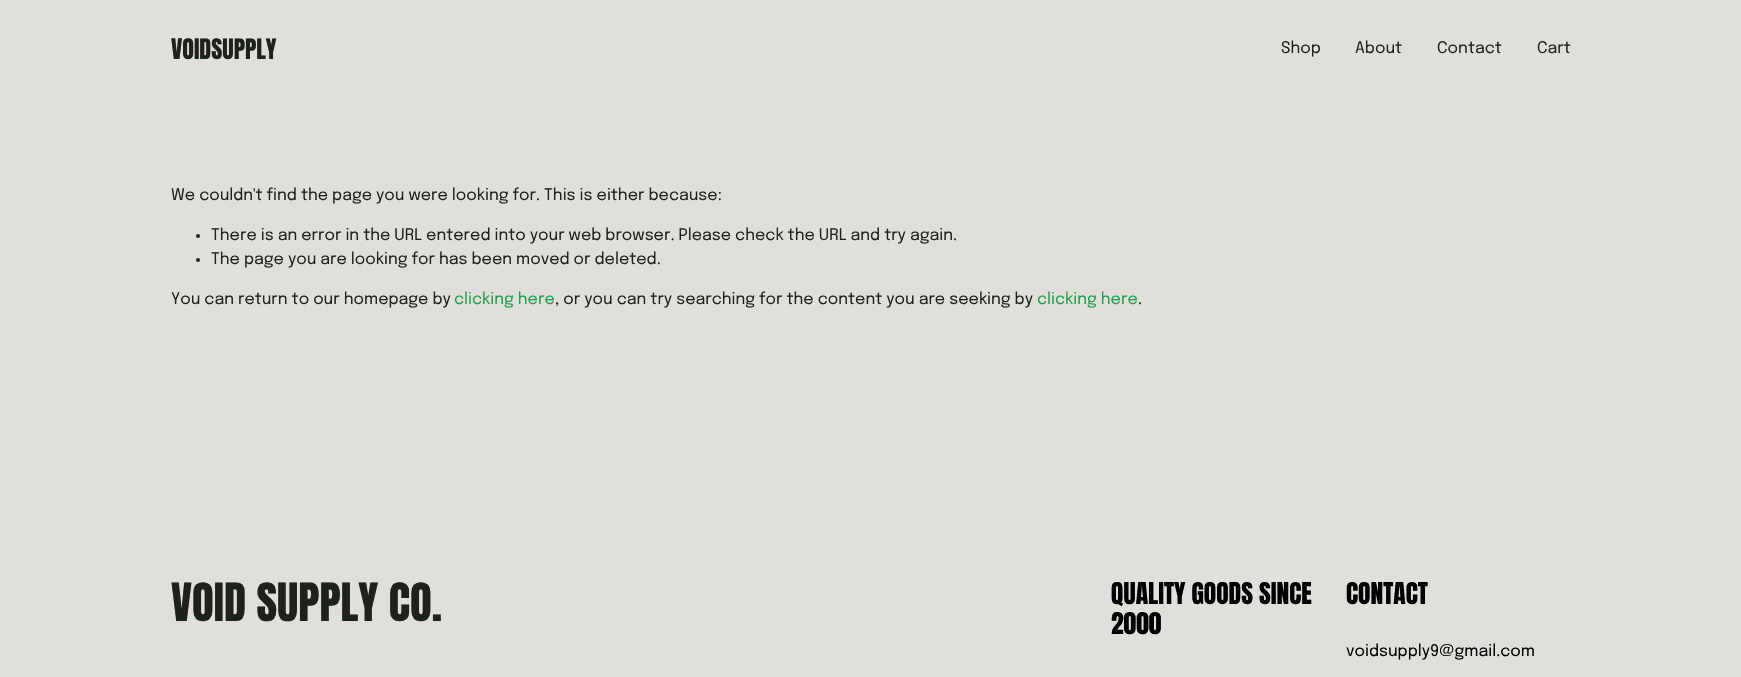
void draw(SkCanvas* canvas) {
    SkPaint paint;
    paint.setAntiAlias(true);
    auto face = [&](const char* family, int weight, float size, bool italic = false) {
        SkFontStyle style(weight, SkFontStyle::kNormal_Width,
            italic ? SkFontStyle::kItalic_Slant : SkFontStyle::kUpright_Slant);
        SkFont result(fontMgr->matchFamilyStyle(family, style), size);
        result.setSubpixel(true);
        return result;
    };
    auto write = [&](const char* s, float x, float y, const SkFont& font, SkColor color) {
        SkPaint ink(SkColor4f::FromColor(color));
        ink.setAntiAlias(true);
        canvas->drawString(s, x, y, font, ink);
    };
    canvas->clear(SkColorSetRGB(225, 223, 217));
    auto kFont1 = face("Anton", 400, 24);
    write("VOIDSUPPLY", 171, 59, kFont1, SkColorSetRGB(29, 35, 28));
    auto kFont2 = face("Epilogue", 400, 16);
    write("Shop", 1281, 53, kFont2, SkColorSetRGB(29, 35, 28));
    write("About", 1355, 53, kFont2, SkColorSetRGB(29, 35, 28));
    write("Contact", 1437, 53, kFont2, SkColorSetRGB(29, 35, 28));
    write("Cart", 1537, 53, kFont2, SkColorSetRGB(29, 35, 28));
    write("We couldn't find the page you were looking for. This is either because:", 171, 200, kFont2, SkColorSetRGB(29, 35, 28));
    paint.setColor(SkColorSetRGB(29, 35, 28));
    canvas->drawCircle(198, 236, 2, paint);
    write("There is an error in the URL entered into your web browser. Please check the URL and try again.", 211, 240, kFont2, SkColorSetRGB(29, 35, 28));
    canvas->drawCircle(198, 260, 2, paint);
    write("The page you are looking for has been moved or deleted.", 211, 264, kFont2, SkColorSetRGB(29, 35, 28));
    write("You can return to our homepage by", 171, 304, kFont2, SkColorSetRGB(29, 35, 28));
    write("clicking here", 454, 304, kFont2, SkColorSetRGB(32, 157, 80));
    write(", or you can try searching for the content you are seeking by", 555, 304, kFont2, SkColorSetRGB(29, 35, 28));
    write("clicking here", 1037, 304, kFont2, SkColorSetRGB(32, 157, 80));
    write(".", 1138, 304, kFont2, SkColorSetRGB(29, 35, 28));
    auto kFont3 = face("Anton", 400, 44.75f);
    write("VOID SUPPLY CO.", 171, 621, kFont3, SkColorSetRGB(29, 35, 28));
    auto kFont4 = face("Anton", 400, 25.5f);
    write("QUALITY GOODS SINCE", 1111, 604, kFont4, SK_ColorBLACK);
    write("2000", 1111, 634, kFont4, SK_ColorBLACK);
    write("CONTACT", 1346, 604, kFont4, SK_ColorBLACK);
    write("voidsupply9@gmail.com", 1346, 656, kFont2, SK_ColorBLACK);
}
